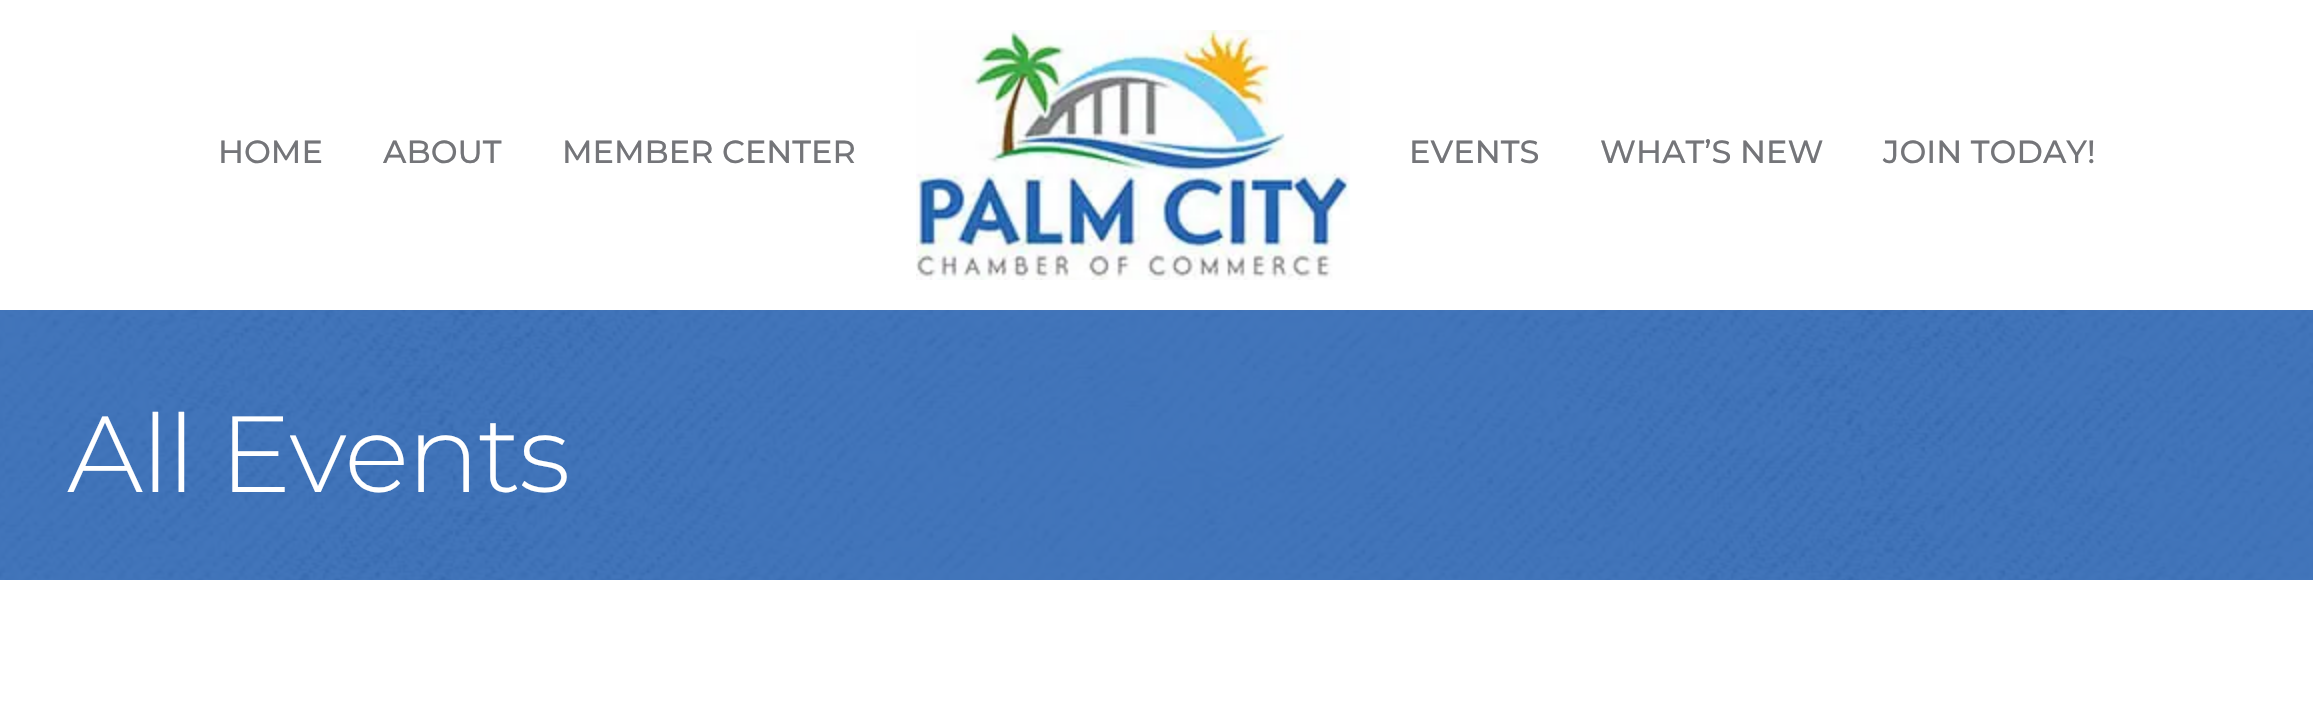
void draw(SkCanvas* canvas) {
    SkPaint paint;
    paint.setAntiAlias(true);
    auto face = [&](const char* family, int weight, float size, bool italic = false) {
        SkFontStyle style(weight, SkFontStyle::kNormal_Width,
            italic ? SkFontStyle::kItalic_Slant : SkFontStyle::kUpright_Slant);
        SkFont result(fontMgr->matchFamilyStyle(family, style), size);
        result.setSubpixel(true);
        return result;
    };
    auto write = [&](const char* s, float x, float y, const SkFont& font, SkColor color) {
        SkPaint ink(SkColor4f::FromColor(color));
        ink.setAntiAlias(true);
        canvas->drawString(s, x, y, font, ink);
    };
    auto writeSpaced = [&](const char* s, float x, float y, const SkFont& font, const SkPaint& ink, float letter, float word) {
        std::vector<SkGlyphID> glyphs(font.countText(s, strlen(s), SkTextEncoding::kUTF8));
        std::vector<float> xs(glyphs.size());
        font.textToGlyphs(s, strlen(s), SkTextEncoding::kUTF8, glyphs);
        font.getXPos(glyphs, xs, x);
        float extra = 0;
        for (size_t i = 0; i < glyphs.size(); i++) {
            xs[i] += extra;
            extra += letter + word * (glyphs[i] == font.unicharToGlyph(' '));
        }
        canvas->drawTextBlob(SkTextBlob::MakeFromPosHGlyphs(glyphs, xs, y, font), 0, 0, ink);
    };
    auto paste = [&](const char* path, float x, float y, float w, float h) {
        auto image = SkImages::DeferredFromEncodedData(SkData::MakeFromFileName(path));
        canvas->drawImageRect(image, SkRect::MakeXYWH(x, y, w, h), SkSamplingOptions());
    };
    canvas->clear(SK_ColorWHITE);
    auto kFont1 = face("Montserrat", 500, 32);
    write("HOME", 218, 163, kFont1, SkColorSetRGB(116, 117, 121));
    write("ABOUT", 383, 163, kFont1, SkColorSetRGB(116, 117, 121));
    write("MEMBER CENTER", 562, 163, kFont1, SkColorSetRGB(116, 117, 121));
    paste("pic1.png", 916, 30, 434, 250);
    write("EVENTS", 1409, 163, kFont1, SkColorSetRGB(116, 117, 121));
    write("WHAT’S NEW", 1600, 163, kFont1, SkColorSetRGB(116, 117, 121));
    write("JOIN TODAY!", 1883, 163, kFont1, SkColorSetRGB(116, 117, 121));
    paste("pic2.png", 0, 310, 2313, 270);
    auto kFont2 = face("Montserrat", 300, 108);
    paint.setColor(SK_ColorWHITE);
    writeSpaced("All Events", 67, 492, kFont2, paint, -2, 0);
}
